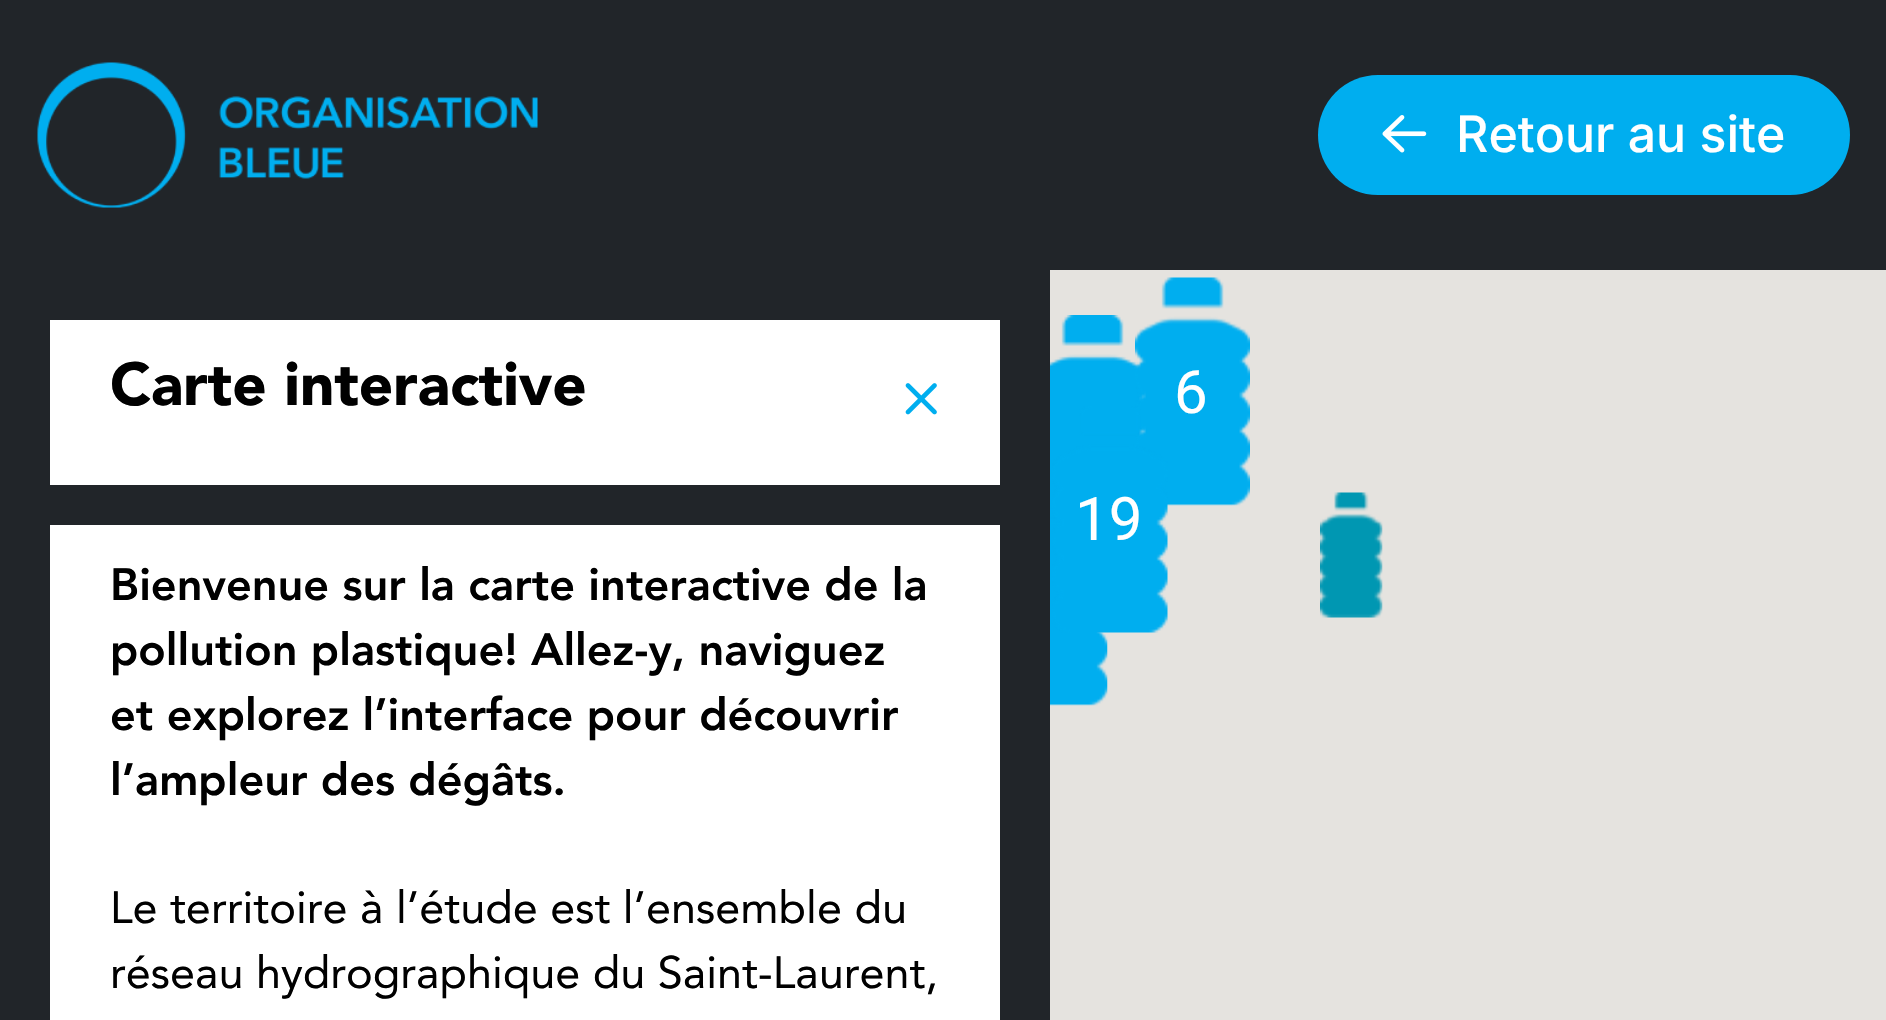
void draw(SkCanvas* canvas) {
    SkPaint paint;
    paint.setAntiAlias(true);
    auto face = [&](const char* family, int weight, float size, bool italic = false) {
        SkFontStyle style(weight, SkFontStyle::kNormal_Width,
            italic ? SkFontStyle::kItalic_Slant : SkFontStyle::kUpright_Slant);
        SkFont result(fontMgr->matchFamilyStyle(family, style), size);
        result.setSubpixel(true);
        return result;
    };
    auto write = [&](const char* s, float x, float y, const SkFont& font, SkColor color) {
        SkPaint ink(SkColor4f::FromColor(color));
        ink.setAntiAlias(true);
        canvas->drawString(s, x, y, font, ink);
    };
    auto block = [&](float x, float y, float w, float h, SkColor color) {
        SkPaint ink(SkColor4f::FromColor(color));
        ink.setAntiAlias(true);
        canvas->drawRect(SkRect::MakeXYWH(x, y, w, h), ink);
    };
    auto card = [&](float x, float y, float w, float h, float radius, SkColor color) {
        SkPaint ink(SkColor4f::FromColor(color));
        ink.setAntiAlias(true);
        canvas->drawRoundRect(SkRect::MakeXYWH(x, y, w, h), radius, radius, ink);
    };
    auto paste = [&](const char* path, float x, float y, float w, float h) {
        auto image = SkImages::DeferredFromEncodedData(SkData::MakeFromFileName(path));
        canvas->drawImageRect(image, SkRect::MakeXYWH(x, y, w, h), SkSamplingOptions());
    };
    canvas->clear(SkColorSetRGB(229, 227, 223));
    block(0, 0, 1886, 270, SkColorSetRGB(33, 37, 41));
    paste("pic1.png", 37, 62, 501, 146);
    card(1318, 75, 532, 120, 60, SkColorSetRGB(0, 174, 239));
    paste("pic2.png", 1382, 115, 45, 38);
    auto kFont1 = face("Inter", 500, 50);
    write("Retour au site", 1456, 152, kFont1, SK_ColorWHITE);
    block(0, 270, 1050, 750, SkColorSetRGB(33, 37, 41));
    block(50, 320, 950, 165, SK_ColorWHITE);
    auto kFont2 = face("Avenir", 900, 60);
    write("Carte interactive", 110, 405, kFont2, SK_ColorBLACK);
    paste("pic3.png", 905, 383, 32, 32);
    block(50, 525, 950, 495, SK_ColorWHITE);
    auto kFont3 = face("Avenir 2", 900, 45);
    write("Bienvenue sur la carte interactive de la", 110, 600, kFont3, SK_ColorBLACK);
    write("pollution plastique! Allez-y, naviguez", 110, 665, kFont3, SK_ColorBLACK);
    write("et explorez l’interface pour découvrir", 110, 730, kFont3, SK_ColorBLACK);
    write("l’ampleur des dégâts.", 110, 795, kFont3, SK_ColorBLACK);
    auto kFont4 = face("Avenir", 400, 45);
    write("Le territoire à l’étude est l’ensemble du", 110, 923, kFont4, SK_ColorBLACK);
    write("réseau hydrographique du Saint-Laurent,", 110, 988, kFont4, SK_ColorBLACK);
    paste("pic4.png", 1050, 315, 96, 209);
    paste("pic5.png", 1135, 277, 115, 229);
    auto kFont5 = face("Roboto", 400, 60);
    write("6", 1174, 413, kFont5, SK_ColorWHITE);
    paste("pic7.png", 1050, 477, 58, 229);
    paste("pic6.png", 1052, 406, 116, 227);
    write("19", 1075, 540, kFont5, SK_ColorWHITE);
    paste("pic8.png", 1320, 492, 63, 126);
}
